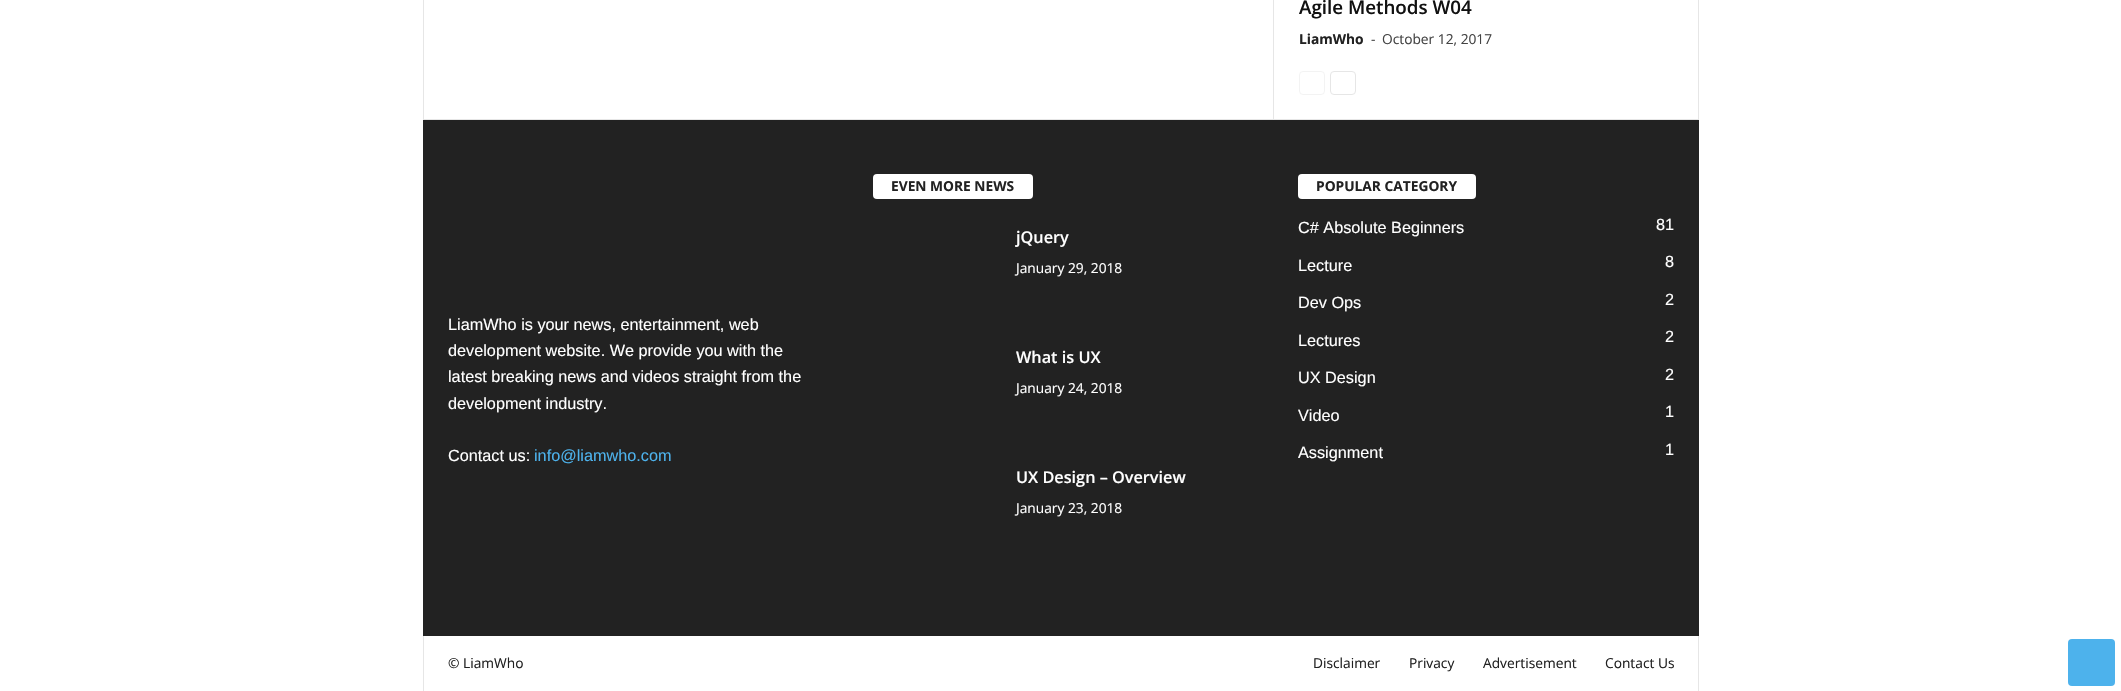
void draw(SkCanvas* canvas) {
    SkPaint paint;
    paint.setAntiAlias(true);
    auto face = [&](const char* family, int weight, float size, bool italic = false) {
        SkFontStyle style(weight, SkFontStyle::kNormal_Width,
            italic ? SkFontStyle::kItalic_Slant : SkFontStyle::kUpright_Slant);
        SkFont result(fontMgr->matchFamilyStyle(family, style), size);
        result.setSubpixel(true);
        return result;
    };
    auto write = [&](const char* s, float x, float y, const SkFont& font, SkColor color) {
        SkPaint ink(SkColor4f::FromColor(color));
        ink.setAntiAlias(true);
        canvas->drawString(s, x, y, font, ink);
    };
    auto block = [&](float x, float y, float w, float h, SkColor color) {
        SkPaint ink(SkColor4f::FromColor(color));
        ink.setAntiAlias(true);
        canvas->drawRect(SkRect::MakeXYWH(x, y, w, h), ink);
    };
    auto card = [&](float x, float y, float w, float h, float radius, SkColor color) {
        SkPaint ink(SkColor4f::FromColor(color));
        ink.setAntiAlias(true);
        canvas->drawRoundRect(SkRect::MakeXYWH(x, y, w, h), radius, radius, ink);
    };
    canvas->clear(SK_ColorWHITE);
    block(423, 119, 1276, 1, SkColorSetRGB(230, 230, 230));
    block(423, 0, 1, 119, SkColorSetRGB(230, 230, 230));
    block(1273, 0, 1, 119, SkColorSetRGB(230, 230, 230));
    auto kFont1 = face("Open Sans", 600, 18.75f);
    write("Agile Methods W04", 1299, 14, kFont1, SkColorSetRGB(17, 17, 17));
    auto kFont2 = face("Open Sans", 700, 13.75f);
    write("LiamWho", 1299, 44, kFont2, SkColorSetRGB(34, 34, 34));
    auto kFont3 = face("Open Sans", 400, 13.75f);
    write("-", 1371, 44, kFont3, SkColorSetRGB(68, 68, 68));
    write("October 12, 2017", 1382, 44, kFont3, SkColorSetRGB(68, 68, 68));
    paint.setStyle(SkPaint::kStroke_Style);
    paint.setStrokeWidth(1);
    paint.setColor(SkColorSetRGB(243, 243, 243));
    canvas->drawRoundRect(SkRect::MakeXYWH(1299.5f, 71.5f, 25, 23), 3.5f, 3.5f, paint);
    paint.setColor(SkColorSetRGB(230, 230, 230));
    canvas->drawRoundRect(SkRect::MakeXYWH(1330.5f, 71.5f, 25, 23), 3.5f, 3.5f, paint);
    block(1698, 0, 1, 119, SkColorSetRGB(230, 230, 230));
    block(423, 120, 1276, 516, SkColorSetRGB(34, 34, 34));
    auto kFont4 = face("Liberation Sans", 400, 16.25f);
    write("LiamWho is your news, entertainment, web", 448, 330, kFont4, SK_ColorWHITE);
    write("development website. We provide you with the", 448, 356, kFont4, SK_ColorWHITE);
    write("latest breaking news and videos straight from the", 448, 382, kFont4, SK_ColorWHITE);
    write("development industry.", 448, 409, kFont4, SK_ColorWHITE);
    write("Contact us:", 448, 461, kFont4, SK_ColorWHITE);
    write("info@liamwho.com", 534, 461, kFont4, SkColorSetRGB(77, 178, 236));
    card(873, 174, 160, 25, 4, SK_ColorWHITE);
    write("EVEN MORE NEWS", 891, 191, kFont2, SkColorSetRGB(34, 34, 34));
    auto kFont5 = face("Open Sans", 600, 16.25f);
    write("jQuery", 1016, 243, kFont5, SK_ColorWHITE);
    write("January 29, 2018", 1016, 273, kFont3, SK_ColorWHITE);
    write("What is UX", 1016, 363, kFont5, SK_ColorWHITE);
    write("January 24, 2018", 1016, 393, kFont3, SK_ColorWHITE);
    write("UX Design – Overview", 1016, 483, kFont5, SK_ColorWHITE);
    write("January 23, 2018", 1016, 513, kFont3, SK_ColorWHITE);
    card(1298, 174, 178, 25, 4, SK_ColorWHITE);
    write("POPULAR CATEGORY", 1316, 191, kFont2, SkColorSetRGB(34, 34, 34));
    write("C# Absolute Beginners", 1298, 233, kFont4, SK_ColorWHITE);
    write("81", 1656, 230, kFont4, SK_ColorWHITE);
    write("Lecture", 1298, 271, kFont4, SK_ColorWHITE);
    write("8", 1665, 267, kFont4, SK_ColorWHITE);
    write("Dev Ops", 1298, 308, kFont4, SK_ColorWHITE);
    write("2", 1665, 305, kFont4, SK_ColorWHITE);
    write("Lectures", 1298, 346, kFont4, SK_ColorWHITE);
    write("2", 1665, 342, kFont4, SK_ColorWHITE);
    write("UX Design", 1298, 383, kFont4, SK_ColorWHITE);
    write("2", 1665, 380, kFont4, SK_ColorWHITE);
    write("Video", 1298, 421, kFont4, SK_ColorWHITE);
    write("1", 1665, 417, kFont4, SK_ColorWHITE);
    write("Assignment", 1298, 458, kFont4, SK_ColorWHITE);
    write("1", 1665, 455, kFont4, SK_ColorWHITE);
    block(423, 636, 1, 55, SkColorSetRGB(230, 230, 230));
    write("© LiamWho", 448, 668, kFont3, SkColorSetRGB(34, 34, 34));
    write("Disclaimer", 1313, 668, kFont3, SkColorSetRGB(34, 34, 34));
    write("Privacy", 1409, 668, kFont3, SkColorSetRGB(34, 34, 34));
    write("Advertisement", 1483, 668, kFont3, SkColorSetRGB(34, 34, 34));
    write("Contact Us", 1605, 668, kFont3, SkColorSetRGB(34, 34, 34));
    block(1698, 636, 1, 55, SkColorSetRGB(230, 230, 230));
    card(2068, 639, 47, 47, 4, SkColorSetRGB(77, 178, 236));
}
